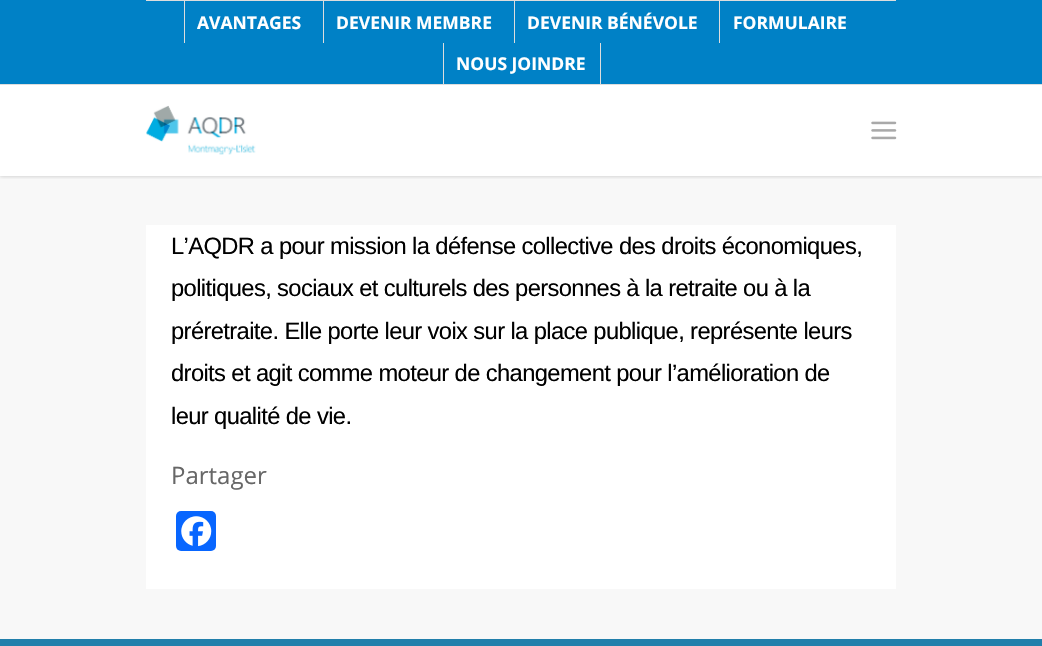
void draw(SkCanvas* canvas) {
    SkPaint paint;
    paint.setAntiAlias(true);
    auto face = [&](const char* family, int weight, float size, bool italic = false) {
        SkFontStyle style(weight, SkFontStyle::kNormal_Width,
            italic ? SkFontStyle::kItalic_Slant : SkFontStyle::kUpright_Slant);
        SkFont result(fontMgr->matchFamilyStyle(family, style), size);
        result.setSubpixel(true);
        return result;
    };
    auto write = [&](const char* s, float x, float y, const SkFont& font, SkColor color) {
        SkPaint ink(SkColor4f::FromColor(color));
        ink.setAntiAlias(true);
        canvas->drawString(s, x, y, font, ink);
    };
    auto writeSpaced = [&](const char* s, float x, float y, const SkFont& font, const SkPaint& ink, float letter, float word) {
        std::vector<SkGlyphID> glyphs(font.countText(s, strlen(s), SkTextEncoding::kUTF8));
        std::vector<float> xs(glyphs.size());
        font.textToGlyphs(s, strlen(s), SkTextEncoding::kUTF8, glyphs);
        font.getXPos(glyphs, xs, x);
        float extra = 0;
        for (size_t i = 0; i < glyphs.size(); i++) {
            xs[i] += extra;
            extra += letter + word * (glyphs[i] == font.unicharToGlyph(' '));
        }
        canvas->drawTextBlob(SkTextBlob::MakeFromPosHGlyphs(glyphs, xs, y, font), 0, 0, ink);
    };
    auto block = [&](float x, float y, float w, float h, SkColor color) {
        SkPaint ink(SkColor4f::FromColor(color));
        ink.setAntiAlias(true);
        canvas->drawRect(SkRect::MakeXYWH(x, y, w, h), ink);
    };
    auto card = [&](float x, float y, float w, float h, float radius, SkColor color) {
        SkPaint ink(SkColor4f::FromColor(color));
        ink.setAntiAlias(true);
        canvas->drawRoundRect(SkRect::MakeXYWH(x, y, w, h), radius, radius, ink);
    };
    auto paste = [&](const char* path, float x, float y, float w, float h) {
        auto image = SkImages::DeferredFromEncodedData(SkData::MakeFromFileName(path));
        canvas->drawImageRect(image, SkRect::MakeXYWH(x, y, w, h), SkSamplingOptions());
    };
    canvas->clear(SK_ColorWHITE);
    block(0, 176, 1042, 463, SkColorSetRGB(248, 248, 248));
    canvas->save();
    canvas->clipRect(SkRect::MakeXYWH(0, 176, 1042, 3));
    paint.setColor(SkColorSetARGB(56, 0, 0, 0));
    paint.setMaskFilter(SkMaskFilter::MakeBlur(kNormal_SkBlurStyle, 2));
    canvas->drawRect(SkRect::MakeXYWH(0, 84, 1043, 92), paint);
    paint.setMaskFilter(nullptr);
    canvas->restore();
    block(0, 0, 1042, 84, SkColorSetRGB(0, 129, 198));
    block(0, 84, 1042, 1, SkColorSetRGB(221, 221, 221));
    block(146, 0, 750, 1, SkColorSetRGB(221, 221, 221));
    block(184, 1, 1, 42, SkColorSetRGB(221, 221, 221));
    auto kFont1 = face("Open Sans", 700, 17.5f);
    write("AVANTAGES", 197, 29, kFont1, SK_ColorWHITE);
    block(323, 1, 1, 42, SkColorSetRGB(221, 221, 221));
    write("DEVENIR MEMBRE", 336, 29, kFont1, SK_ColorWHITE);
    block(514, 1, 1, 42, SkColorSetRGB(221, 221, 221));
    write("DEVENIR BÉNÉVOLE", 527, 29, kFont1, SK_ColorWHITE);
    block(719, 1, 1, 42, SkColorSetRGB(221, 221, 221));
    write("FORMULAIRE", 733, 29, kFont1, SK_ColorWHITE);
    block(600, 43, 1, 41, SkColorSetRGB(221, 221, 221));
    block(443, 43, 1, 41, SkColorSetRGB(221, 221, 221));
    write("NOUS JOINDRE", 456, 70, kFont1, SK_ColorWHITE);
    paste("pic1.png", 146, 105, 110, 50);
    paste("pic2.png", 871, 121, 26, 19);
    block(146, 225, 750, 364, SK_ColorWHITE);
    auto kFont2 = face("Liberation Sans", 400, 23.75f);
    paint.setColor(SK_ColorBLACK);
    writeSpaced("L’AQDR a pour mission la défense collective des droits économiques,", 171, 254, kFont2, paint, -0.62f, 0);
    writeSpaced("politiques, sociaux et culturels des personnes à la retraite ou à la", 171, 296, kFont2, paint, -0.62f, 0);
    writeSpaced("préretraite. Elle porte leur voix sur la place publique, représente leurs", 171, 339, kFont2, paint, -0.62f, 0);
    writeSpaced("droits et agit comme moteur de changement pour l’amélioration de", 171, 381, kFont2, paint, -0.62f, 0);
    writeSpaced("leur qualité de vie.", 171, 424, kFont2, paint, -0.62f, 0);
    auto kFont3 = face("Open Sans", 400, 24);
    write("Partager", 171, 484, kFont3, SkColorSetRGB(103, 103, 103));
    card(176, 511, 40, 40, 5, SkColorSetRGB(8, 102, 255));
    paste("pic3.png", 181, 516, 31, 31);
    block(0, 639, 1042, 7, SkColorSetRGB(33, 127, 171));
}
